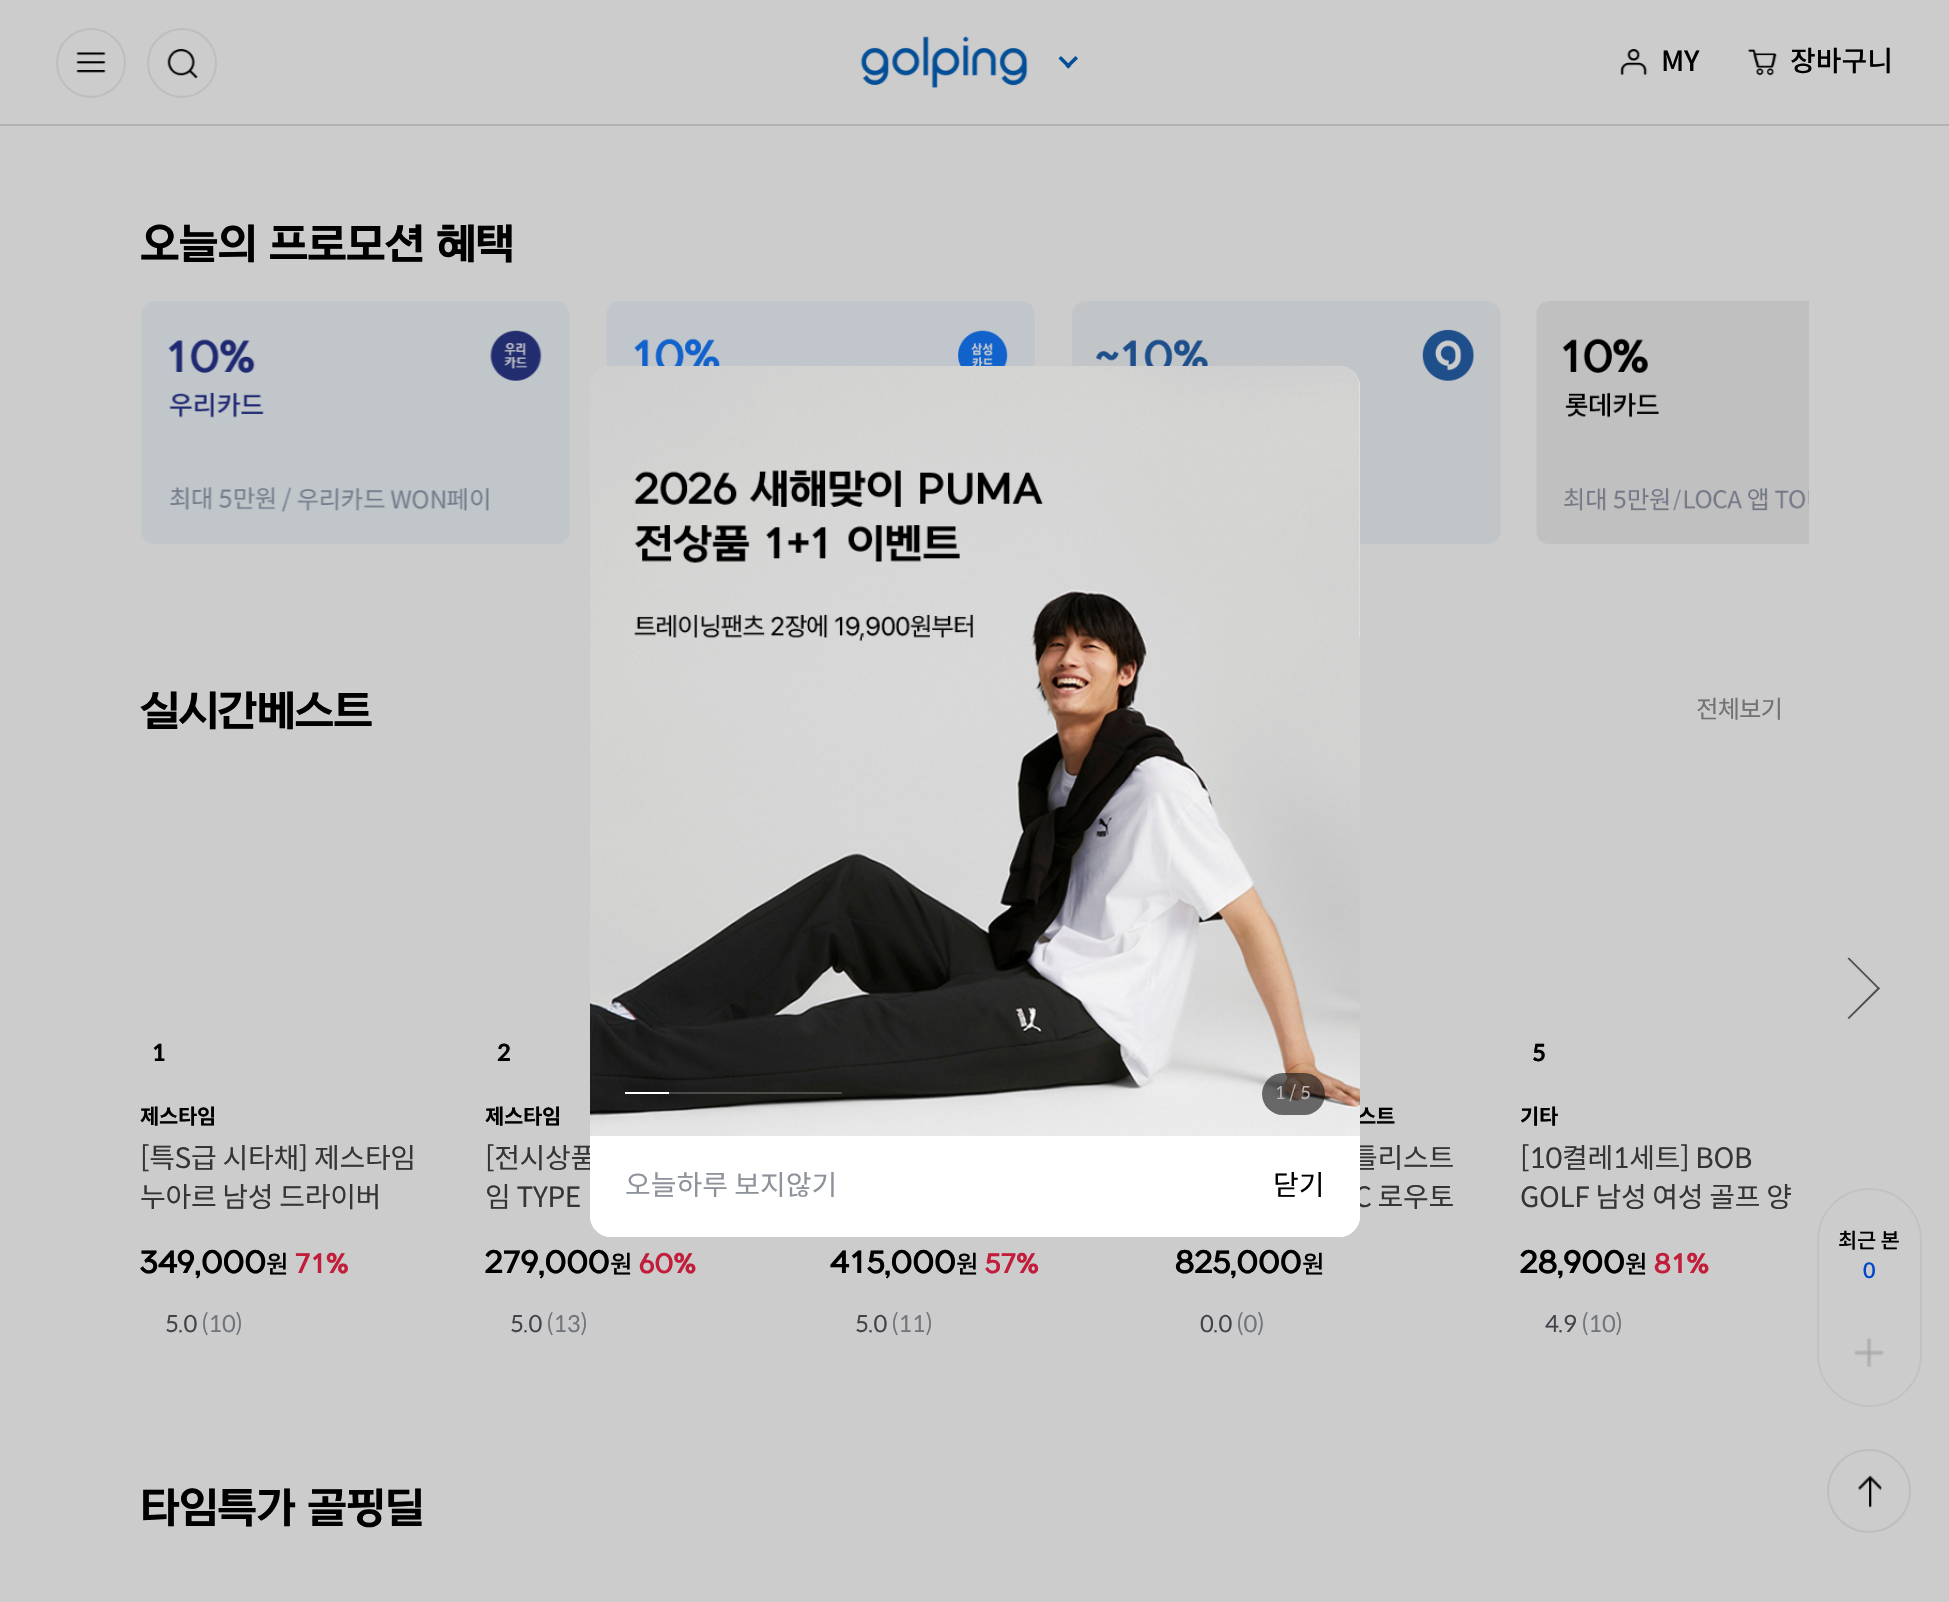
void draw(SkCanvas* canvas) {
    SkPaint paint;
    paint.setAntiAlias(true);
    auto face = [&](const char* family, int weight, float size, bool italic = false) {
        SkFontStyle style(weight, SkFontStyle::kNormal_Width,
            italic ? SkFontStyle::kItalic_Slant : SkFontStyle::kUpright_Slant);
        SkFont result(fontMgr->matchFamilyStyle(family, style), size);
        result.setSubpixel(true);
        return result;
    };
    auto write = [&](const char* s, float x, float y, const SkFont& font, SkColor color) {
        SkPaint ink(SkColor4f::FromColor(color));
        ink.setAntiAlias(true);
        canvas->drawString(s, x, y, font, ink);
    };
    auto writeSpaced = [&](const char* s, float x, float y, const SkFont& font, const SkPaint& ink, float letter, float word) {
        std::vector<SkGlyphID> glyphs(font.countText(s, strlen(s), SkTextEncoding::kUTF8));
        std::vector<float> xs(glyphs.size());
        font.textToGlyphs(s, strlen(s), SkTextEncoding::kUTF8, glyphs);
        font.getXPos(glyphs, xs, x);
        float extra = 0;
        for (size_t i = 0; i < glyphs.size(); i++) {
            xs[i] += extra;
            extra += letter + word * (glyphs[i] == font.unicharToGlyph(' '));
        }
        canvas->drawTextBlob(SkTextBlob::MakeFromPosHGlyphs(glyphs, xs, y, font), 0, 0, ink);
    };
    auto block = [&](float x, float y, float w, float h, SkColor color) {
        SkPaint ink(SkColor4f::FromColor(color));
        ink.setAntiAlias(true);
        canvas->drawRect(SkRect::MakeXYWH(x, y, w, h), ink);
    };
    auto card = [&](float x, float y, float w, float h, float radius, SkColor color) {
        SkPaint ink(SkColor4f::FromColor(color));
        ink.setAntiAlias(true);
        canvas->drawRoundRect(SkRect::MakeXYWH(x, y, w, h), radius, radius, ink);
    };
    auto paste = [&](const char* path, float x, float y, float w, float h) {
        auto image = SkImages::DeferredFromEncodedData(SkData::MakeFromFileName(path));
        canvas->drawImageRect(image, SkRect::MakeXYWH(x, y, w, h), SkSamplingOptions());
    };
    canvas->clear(SkColorSetRGB(204, 204, 204));
    block(0, 124, 1949, 2, SkColorSetRGB(179, 179, 179));
    paint.setStyle(SkPaint::kStroke_Style);
    paint.setStrokeWidth(2);
    paint.setColor(SkColorSetRGB(190, 190, 190));
    canvas->drawCircle(91, 63, 34, paint);
    paste("pic1.png", 76, 52, 30, 21);
    canvas->drawCircle(182, 63, 34, paint);
    paste("pic2.png", 167, 49, 31, 30);
    paste("pic3.png", 860, 36, 168, 52);
    paint.setStyle(SkPaint::kFill_Style);
    paint.setColor(SkColorSetRGB(4, 78, 152));
    canvas->drawPath(SkPathBuilder().moveTo(1061, 56).lineTo(1071, 66).lineTo(1068.5f, 68.5f).lineTo(1058.5f, 58.5f).close().detach(), paint);
    canvas->drawPath(SkPathBuilder().moveTo(1065.5f, 66).lineTo(1075.5f, 56).lineTo(1078, 58.5f).lineTo(1068, 68.5f).close().detach(), paint);
    paste("pic4.png", 1620, 49, 28, 27);
    auto kFont1 = face("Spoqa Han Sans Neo", 500, 28);
    paint.setColor(SK_ColorBLACK);
    writeSpaced("MY", 1661, 71, kFont1, paint, -0.3f, 0);
    paste("pic5.png", 1748, 49, 29, 27);
    write("장바구니", 1790, 71, kFont1, SK_ColorBLACK);
    auto kFont2 = face("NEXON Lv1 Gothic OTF", 700, 42);
    writeSpaced("오늘의 프로모션 혜택", 140, 259, kFont2, paint, -1, 0);
    paste("pic6.png", 141, 301, 429, 243);
    paste("pic7.png", 606, 301, 429, 66);
    paste("pic8.png", 1072, 301, 429, 243);
    paste("pic9.png", 1536, 301, 273, 243);
    writeSpaced("실시간베스트", 140, 726, kFont2, paint, -1, 0);
    auto kFont3 = face("Spoqa Han Sans Neo", 400, 24.5f);
    paint.setColor(SkColorSetRGB(114, 114, 114));
    writeSpaced("전체보기", 1696, 718, kFont3, paint, -1, 0);
    paint.setColor(SkColorSetRGB(78, 78, 78));
    canvas->drawPath(SkPathBuilder().moveTo(1849, 957.5f).lineTo(1880, 988.5f).lineTo(1878.5f, 989.5f).lineTo(1847.5f, 958.5f).close().detach(), paint);
    canvas->drawPath(SkPathBuilder().moveTo(1878.5f, 987).lineTo(1880, 988.5f).lineTo(1849, 1019).lineTo(1847.5f, 1018).close().detach(), paint);
    auto kFont4 = face("Spoqa Han Sans Neo", 700, 23);
    paint.setColor(SK_ColorBLACK);
    writeSpaced("1", 152, 1061, kFont4, paint, -0.3f, 0);
    auto kFont5 = face("Spoqa Han Sans Neo", 700, 21);
    writeSpaced("제스타임", 140, 1124, kFont5, paint, -0.3f, 0);
    auto kFont6 = face("Spoqa Han Sans Neo", 400, 28);
    paint.setColor(SkColorSetRGB(53, 53, 53));
    writeSpaced("[특S급 시타채] 제스타임", 140, 1168, kFont6, paint, -0.3f, 0);
    writeSpaced("누아르 남성 드라이버", 140, 1207, kFont6, paint, -0.3f, 0);
    auto kFont7 = face("NEXON Lv1 Gothic OTF", 700, 29.75f);
    paint.setColor(SK_ColorBLACK);
    writeSpaced("349,000", 140, 1273, kFont7, paint, 0.25f, 0);
    auto kFont8 = face("Spoqa Han Sans Neo", 500, 24.5f);
    writeSpaced("원", 266, 1273, kFont8, paint, -0.3f, 0);
    auto kFont9 = face("NEXON Lv1 Gothic OTF", 700, 26);
    paint.setColor(SkColorSetRGB(194, 30, 60));
    writeSpaced("71%", 295, 1273, kFont9, paint, 0.25f, 0);
    auto kFont10 = face("Spoqa Han Sans Neo", 400, 23);
    paint.setColor(SkColorSetRGB(64, 68, 74));
    writeSpaced("5.0", 165, 1332, kFont10, paint, -0.3f, 0);
    paint.setColor(SkColorSetRGB(113, 117, 124));
    writeSpaced("(10)", 201, 1332, kFont10, paint, -0.3f, 0);
    paint.setColor(SK_ColorBLACK);
    writeSpaced("2", 497, 1061, kFont4, paint, -0.3f, 0);
    writeSpaced("제스타임", 485, 1124, kFont5, paint, -0.3f, 0);
    paint.setColor(SkColorSetRGB(53, 53, 53));
    writeSpaced("[전시상품", 485, 1168, kFont6, paint, -0.3f, 0);
    writeSpaced("임 TYPE", 485, 1207, kFont6, paint, -0.3f, 0);
    paint.setColor(SK_ColorBLACK);
    writeSpaced("279,000", 485, 1273, kFont7, paint, 0.25f, 0);
    writeSpaced("원", 610, 1273, kFont8, paint, -0.3f, 0);
    paint.setColor(SkColorSetRGB(194, 30, 60));
    writeSpaced("60%", 639, 1273, kFont9, paint, 0.25f, 0);
    paint.setColor(SkColorSetRGB(64, 68, 74));
    writeSpaced("5.0", 510, 1332, kFont10, paint, -0.3f, 0);
    paint.setColor(SkColorSetRGB(113, 117, 124));
    writeSpaced("(13)", 546, 1332, kFont10, paint, -0.3f, 0);
    paint.setColor(SK_ColorBLACK);
    writeSpaced("415,000", 830, 1273, kFont7, paint, 0.25f, 0);
    writeSpaced("원", 956, 1273, kFont8, paint, -0.3f, 0);
    paint.setColor(SkColorSetRGB(194, 30, 60));
    writeSpaced("57%", 985, 1273, kFont9, paint, 0.25f, 0);
    paint.setColor(SkColorSetRGB(64, 68, 74));
    writeSpaced("5.0", 855, 1332, kFont10, paint, -0.3f, 0);
    paint.setColor(SkColorSetRGB(113, 117, 124));
    writeSpaced("(11)", 891, 1332, kFont10, paint, -0.3f, 0);
    paint.setColor(SK_ColorBLACK);
    writeSpaced("스트", 1357, 1124, kFont5, paint, -0.3f, 0);
    paint.setColor(SkColorSetRGB(53, 53, 53));
    writeSpaced("틀리스트", 1352, 1168, kFont6, paint, -0.3f, 0);
    writeSpaced("C 로우토", 1354, 1207, kFont6, paint, -0.3f, 0);
    paint.setColor(SK_ColorBLACK);
    writeSpaced("825,000", 1175, 1273, kFont7, paint, 0.25f, 0);
    writeSpaced("원", 1302, 1273, kFont8, paint, -0.3f, 0);
    paint.setColor(SkColorSetRGB(64, 68, 74));
    writeSpaced("0.0", 1200, 1332, kFont10, paint, -0.3f, 0);
    paint.setColor(SkColorSetRGB(113, 117, 124));
    writeSpaced("(0)", 1236, 1332, kFont10, paint, -0.3f, 0);
    paint.setColor(SK_ColorBLACK);
    writeSpaced("5", 1532, 1061, kFont4, paint, -0.3f, 0);
    writeSpaced("기타", 1520, 1124, kFont5, paint, -0.3f, 0);
    paint.setColor(SkColorSetRGB(53, 53, 53));
    writeSpaced("[10켤레1세트] BOB", 1520, 1168, kFont6, paint, -0.3f, 0);
    writeSpaced("GOLF 남성 여성 골프 양", 1520, 1207, kFont6, paint, -0.3f, 0);
    paint.setColor(SK_ColorBLACK);
    writeSpaced("28,900", 1520, 1273, kFont7, paint, 0.25f, 0);
    writeSpaced("원", 1625, 1273, kFont8, paint, -0.3f, 0);
    paint.setColor(SkColorSetRGB(194, 30, 60));
    writeSpaced("81%", 1654, 1273, kFont9, paint, 0.25f, 0);
    paint.setColor(SkColorSetRGB(64, 68, 74));
    writeSpaced("4.9", 1545, 1332, kFont10, paint, -0.3f, 0);
    paint.setColor(SkColorSetRGB(113, 117, 124));
    writeSpaced("(10)", 1581, 1332, kFont10, paint, -0.3f, 0);
    paint.setColor(SK_ColorBLACK);
    writeSpaced("타임특가 골핑딜", 140, 1523, kFont2, paint, -1, 0);
    paint.setStyle(SkPaint::kStroke_Style);
    paint.setColor(SkColorSetRGB(192, 194, 197));
    canvas->drawRoundRect(SkRect::MakeXYWH(1818, 1189, 103, 217), 51.5f, 51.5f, paint);
    auto kFont11 = face("Spoqa Han Sans Neo", 500, 21);
    paint.setStyle(SkPaint::kFill_Style);
    paint.setColor(SK_ColorBLACK);
    writeSpaced("최근 본", 1838, 1248, kFont11, paint, -0.3f, 0);
    paint.setColor(SkColorSetRGB(0, 70, 204));
    writeSpaced("0", 1863, 1278, kFont11, paint, -0.3f, 0);
    paste("pic10.png", 1854, 1338, 30, 30);
    paste("pic11.png", 1857, 1475, 25, 33);
    paint.setStyle(SkPaint::kStroke_Style);
    paint.setColor(SkColorSetRGB(190, 190, 190));
    canvas->drawCircle(1869, 1491, 41, paint);
    card(590, 366, 770, 871, 21, SK_ColorWHITE);
    paste("pic12.png", 590, 366, 770, 770);
    block(669, 1092, 173, 2, SkColorSetARGB(51, 255, 255, 255));
    block(625, 1092, 44, 2, SK_ColorWHITE);
    card(1262, 1073, 63, 42, 21, SkColorSetARGB(153, 17, 17, 17));
    auto kFont12 = face("Spoqa Han Sans Neo", 400, 17.5f);
    write("1 / 5", 1275, 1099, kFont12, SkColorSetRGB(187, 182, 181));
    paint.setStyle(SkPaint::kFill_Style);
    paint.setColor(SK_ColorWHITE);
    canvas->drawPath(SkPathBuilder().moveTo(590, 1136).lineTo(1360, 1136).lineTo(1360, 1216).cubicTo(1360, 1227.5f, 1350.5f, 1237, 1339, 1237).lineTo(611, 1237).cubicTo(599.5f, 1237, 590, 1227.5f, 590, 1216).close().detach(), paint);
    write("오늘하루 보지않기", 625, 1195, kFont6, SkColorSetRGB(141, 146, 155));
    write("닫기", 1273, 1195, kFont6, SK_ColorBLACK);
}
